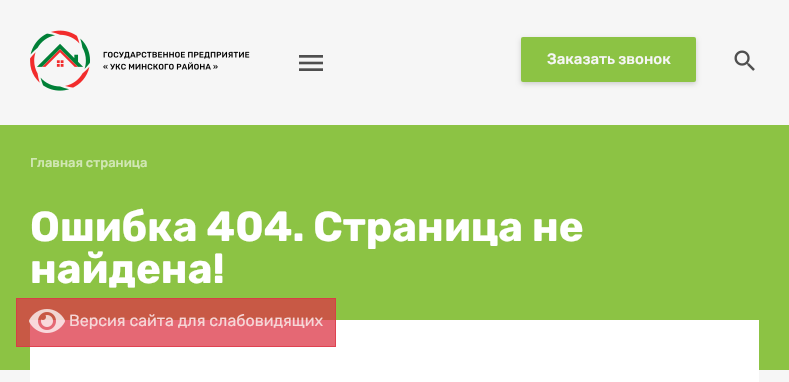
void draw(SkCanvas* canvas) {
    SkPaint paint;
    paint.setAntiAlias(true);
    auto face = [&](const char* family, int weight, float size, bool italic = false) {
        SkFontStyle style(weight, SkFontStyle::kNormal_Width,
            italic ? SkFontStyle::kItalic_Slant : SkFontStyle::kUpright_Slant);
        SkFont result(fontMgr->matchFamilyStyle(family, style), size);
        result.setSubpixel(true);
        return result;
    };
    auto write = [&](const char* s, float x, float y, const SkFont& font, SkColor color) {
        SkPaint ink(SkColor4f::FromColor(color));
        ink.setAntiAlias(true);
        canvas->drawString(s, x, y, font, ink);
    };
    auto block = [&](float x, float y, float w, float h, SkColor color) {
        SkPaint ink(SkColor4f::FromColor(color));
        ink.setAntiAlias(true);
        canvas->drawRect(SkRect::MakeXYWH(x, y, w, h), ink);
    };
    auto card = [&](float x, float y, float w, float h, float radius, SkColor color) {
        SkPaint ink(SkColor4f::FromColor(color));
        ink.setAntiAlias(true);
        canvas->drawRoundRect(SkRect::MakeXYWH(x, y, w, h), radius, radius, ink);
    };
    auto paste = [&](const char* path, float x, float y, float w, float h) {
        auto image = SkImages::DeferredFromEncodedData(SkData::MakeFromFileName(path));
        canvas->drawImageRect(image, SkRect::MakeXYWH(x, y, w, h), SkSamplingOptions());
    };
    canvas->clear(SkColorSetRGB(246, 246, 246));
    paste("pic1.png", 30, 30, 220, 61);
    paste("pic2.png", 299, 55, 24, 16);
    paint.setColor(SkColorSetARGB(43, 0, 0, 0));
    paint.setMaskFilter(SkMaskFilter::MakeBlur(kNormal_SkBlurStyle, 2.5f));
    canvas->drawRoundRect(SkRect::MakeXYWH(521, 39, 175, 45), 2, 2, paint);
    paint.setMaskFilter(nullptr);
    card(521, 37, 175, 45, 2, SkColorSetRGB(140, 195, 68));
    auto kFont1 = face("Rubik", 500, 15);
    write("Заказать звонок", 547, 64, kFont1, SkColorSetRGB(246, 246, 246));
    paste("pic3.png", 734, 50, 21, 21);
    block(0, 125, 789, 245, SkColorSetRGB(140, 195, 68));
    auto kFont2 = face("Rubik", 500, 13);
    write("Главная страница", 30, 167, kFont2, SkColorSetRGB(209, 231, 180));
    auto kFont3 = face("Rubik", 700, 42);
    write("Ошибка 404. Страница не", 30, 241, kFont3, SK_ColorWHITE);
    write("найдена!", 30, 283, kFont3, SK_ColorWHITE);
    block(30, 320, 729, 62, SK_ColorWHITE);
    block(16, 298, 320, 49, SkColorSetARGB(191, 220, 53, 69));
    paint.setStyle(SkPaint::kStroke_Style);
    paint.setStrokeWidth(1);
    paint.setColor(SkColorSetARGB(191, 220, 53, 69));
    canvas->drawRect(SkRect::MakeXYWH(16.5f, 298.5f, 319, 48), paint);
    paste("pic4.png", 29, 309, 36, 24);
    auto kFont4 = face("Rubik", 400, 16);
    write("Версия сайта для слабовидящих", 69, 326, kFont4, SkColorSetRGB(246, 216, 216));
}
